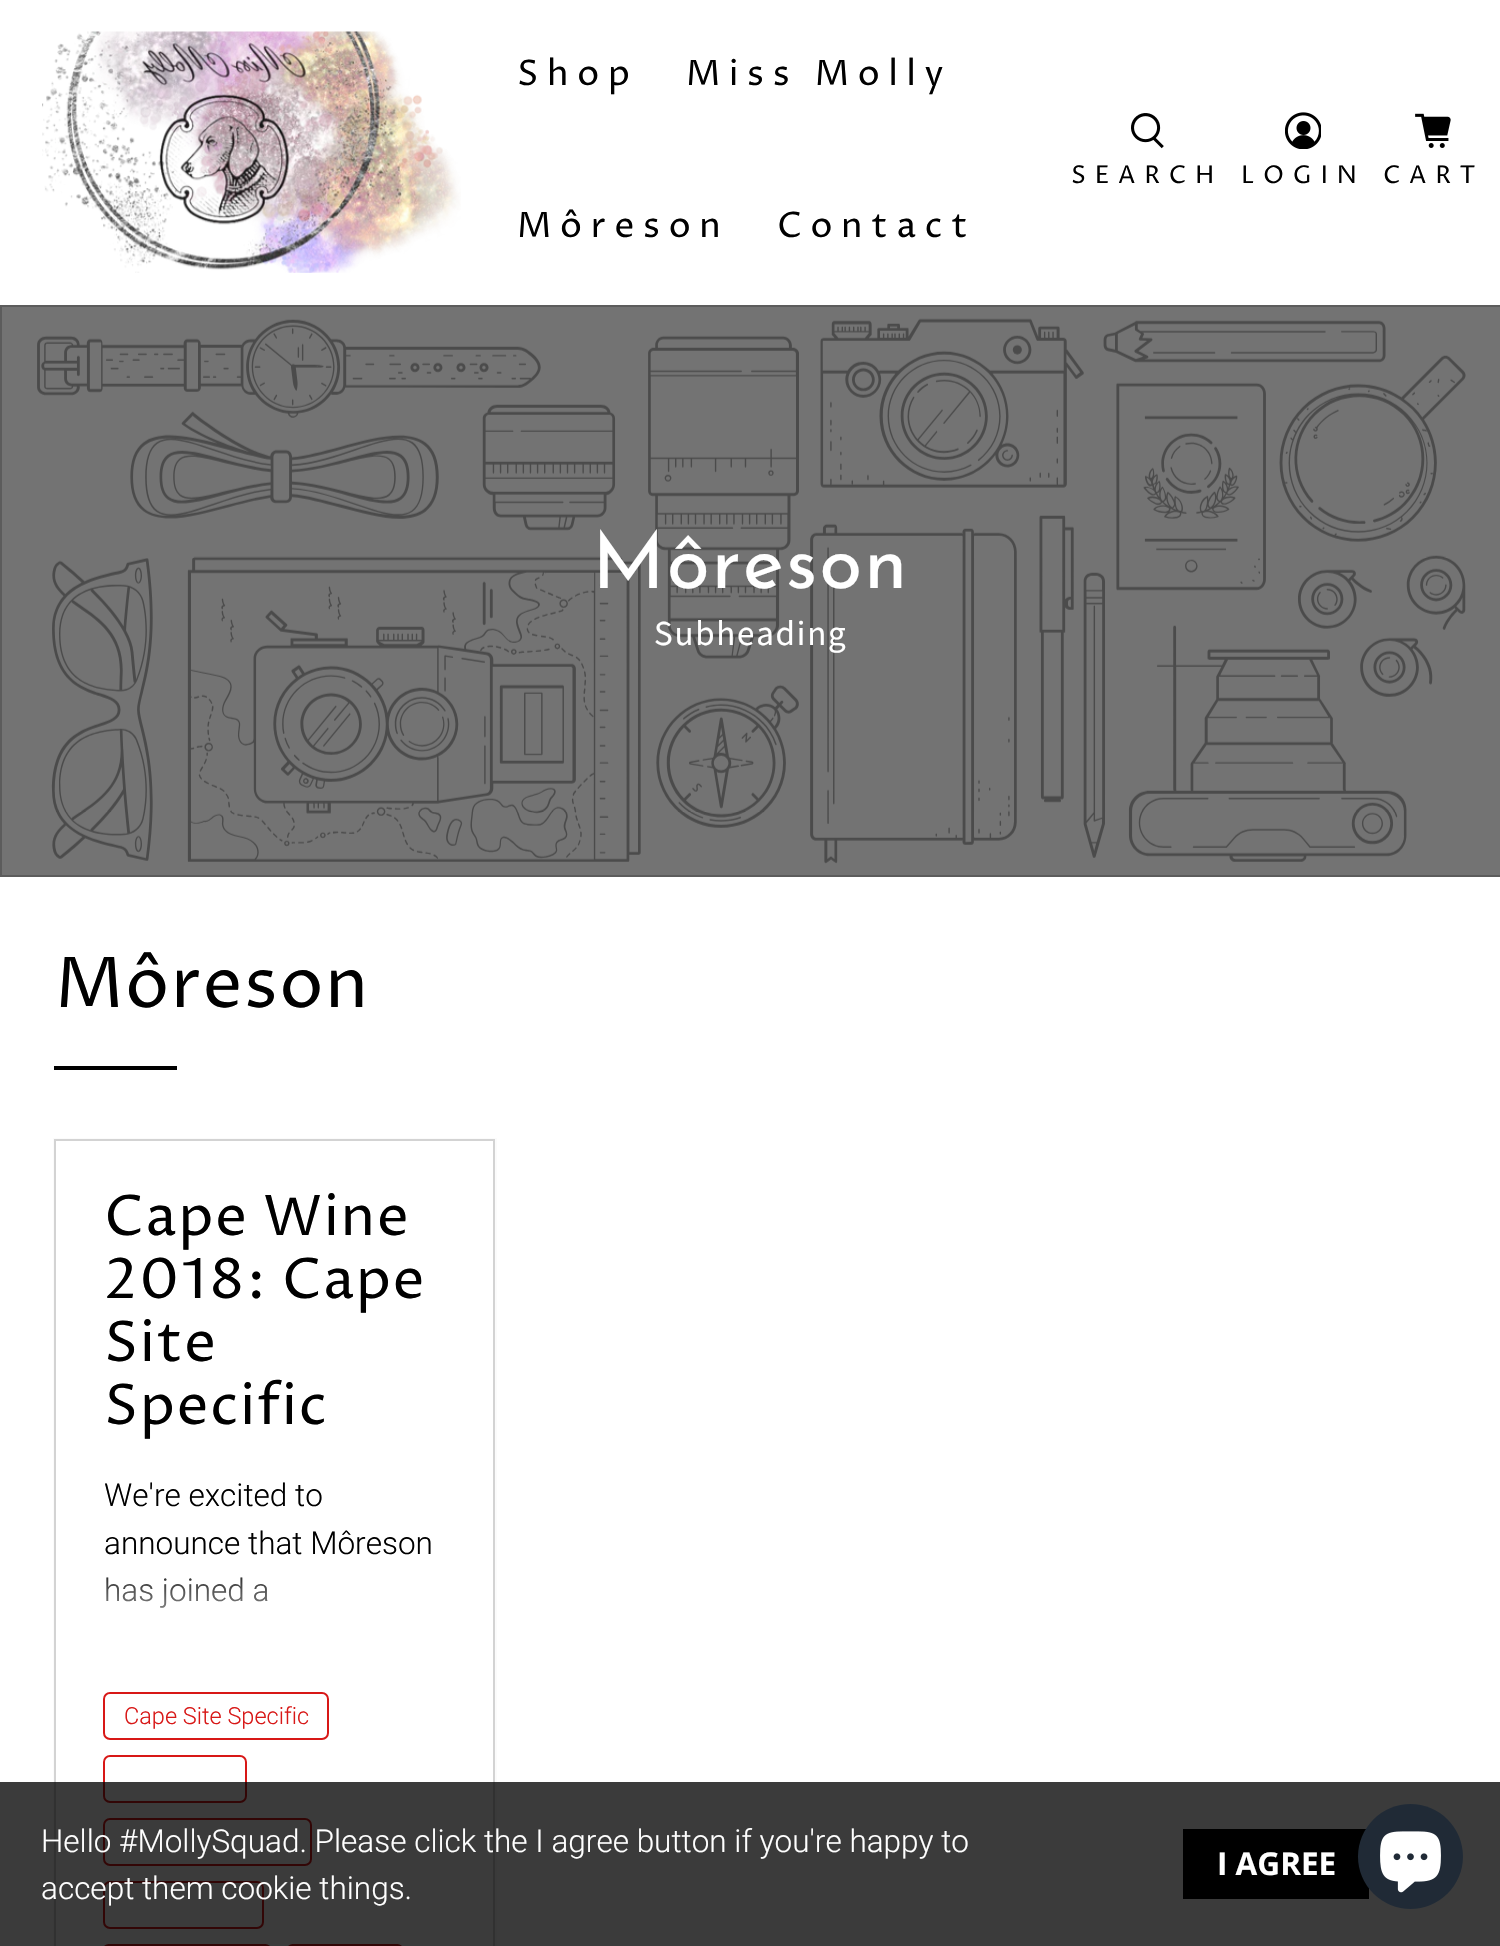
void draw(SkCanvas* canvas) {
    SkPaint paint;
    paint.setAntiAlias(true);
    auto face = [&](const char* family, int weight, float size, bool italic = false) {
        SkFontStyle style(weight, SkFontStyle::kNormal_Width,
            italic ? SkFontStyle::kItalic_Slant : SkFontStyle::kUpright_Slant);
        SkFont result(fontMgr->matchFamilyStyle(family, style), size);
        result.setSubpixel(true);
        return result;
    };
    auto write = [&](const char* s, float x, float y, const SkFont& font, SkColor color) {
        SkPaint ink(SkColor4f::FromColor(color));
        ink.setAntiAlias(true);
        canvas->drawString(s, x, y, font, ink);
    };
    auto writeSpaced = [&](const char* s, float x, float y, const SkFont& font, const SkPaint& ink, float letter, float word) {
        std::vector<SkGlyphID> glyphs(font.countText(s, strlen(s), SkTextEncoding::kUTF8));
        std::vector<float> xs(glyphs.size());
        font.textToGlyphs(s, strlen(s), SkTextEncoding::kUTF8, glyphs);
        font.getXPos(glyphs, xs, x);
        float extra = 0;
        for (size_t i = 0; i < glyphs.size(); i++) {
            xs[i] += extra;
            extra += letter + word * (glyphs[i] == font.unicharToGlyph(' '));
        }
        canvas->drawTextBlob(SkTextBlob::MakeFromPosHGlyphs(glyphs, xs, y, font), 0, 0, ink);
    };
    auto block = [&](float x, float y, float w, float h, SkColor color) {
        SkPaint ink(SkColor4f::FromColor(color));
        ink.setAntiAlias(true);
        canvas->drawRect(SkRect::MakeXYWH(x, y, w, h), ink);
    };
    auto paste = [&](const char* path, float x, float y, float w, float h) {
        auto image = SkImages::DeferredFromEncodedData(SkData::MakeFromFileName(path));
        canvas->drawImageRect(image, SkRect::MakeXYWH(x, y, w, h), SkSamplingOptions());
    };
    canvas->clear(SK_ColorWHITE);
    paste("pic1.png", 42, 31, 419, 242);
    auto kFont1 = face("Proza Libre", 400, 35);
    paint.setColor(SK_ColorBLACK);
    writeSpaced("Shop", 517, 85, kFont1, paint, 8.75f, 0);
    writeSpaced("Miss Molly", 686, 85, kFont1, paint, 8.75f, 0);
    writeSpaced("Môreson", 517, 237, kFont1, paint, 8.75f, 0);
    writeSpaced("Contact", 777, 237, kFont1, paint, 8.75f, 0);
    paste("pic2.png", 1131, 113, 33, 36);
    auto kFont2 = face("Proza Libre", 400, 24.5f);
    writeSpaced("SEARCH", 1071, 183, kFont2, paint, 8.75f, 0);
    paste("pic3.png", 1285, 112, 36, 37);
    writeSpaced("LOGIN", 1241, 183, kFont2, paint, 8.75f, 0);
    paste("pic4.png", 1415, 113, 36, 35);
    writeSpaced("CART", 1383, 183, kFont2, paint, 8.75f, 0);
    paint.setColor(SkColorSetRGB(115, 115, 115));
    canvas->drawRect(SkRect::MakeXYWH(1, 306, 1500, 570), paint);
    paint.setStyle(SkPaint::kStroke_Style);
    paint.setStrokeWidth(2);
    paint.setColor(SkColorSetRGB(92, 92, 92));
    canvas->drawRect(SkRect::MakeXYWH(1, 306, 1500, 570), paint);
    paste("pic5.png", 37, 318, 1429, 546);
    auto kFont3 = face("Josefin Sans", 400, 78.75f);
    paint.setStyle(SkPaint::kFill_Style);
    paint.setColor(SK_ColorWHITE);
    writeSpaced("Môreson", 592, 588, kFont3, paint, 1.75f, 0);
    auto kFont4 = face("Source Sans Pro", 400, 35);
    writeSpaced("Subheading", 654, 645, kFont4, paint, 1.75f, 0);
    auto kFont5 = face("Proza Libre", 400, 70);
    paint.setColor(SK_ColorBLACK);
    writeSpaced("Môreson", 55, 1007, kFont5, paint, 1.75f, 0);
    block(54, 1066, 123, 4, SK_ColorBLACK);
    paint.setStyle(SkPaint::kStroke_Style);
    paint.setColor(SkColorSetRGB(251, 251, 251));
    canvas->drawRect(SkRect::MakeXYWH(54, 1139, 442, 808), paint);
    paint.setColor(SkColorSetRGB(211, 211, 211));
    canvas->drawRect(SkRect::MakeXYWH(55, 1140, 439, 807), paint);
    auto kFont6 = face("Proza Libre", 400, 56);
    paint.setStyle(SkPaint::kFill_Style);
    paint.setColor(SK_ColorBLACK);
    writeSpaced("Cape Wine", 104, 1235, kFont6, paint, 1.75f, 0);
    writeSpaced("2018: Cape", 104, 1298, kFont6, paint, 1.75f, 0);
    writeSpaced("Site", 104, 1361, kFont6, paint, 1.75f, 0);
    writeSpaced("Specific", 104, 1424, kFont6, paint, 1.75f, 0);
    auto kFont7 = face("Roboto", 300, 31.5f);
    write("We're excited to", 104, 1506, kFont7, SK_ColorBLACK);
    write("announce that Môreson", 104, 1554, kFont7, SK_ColorBLACK);
    write("has joined a", 104, 1601, kFont7, SK_ColorBLACK);
    {
        const SkColor colors[] = {SkColorSetARGB(0, 255, 255, 255), SK_ColorWHITE};
        const float stops[] = {0, 1};
        const SkPoint ends[] = {{275, 1556}, {275, 1661}};
        paint.setShader(SkGradientShader::MakeLinear(ends, colors, stops, 2, SkTileMode::kClamp));
        paint.setAlpha(255);
    }
    canvas->drawRect(SkRect::MakeXYWH(106, 1577, 162, 31), paint);
    paint.setStyle(SkPaint::kStroke_Style);
    paint.setShader(nullptr);
    paint.setColor(SkColorSetRGB(216, 24, 23));
    canvas->drawRoundRect(SkRect::MakeXYWH(104, 1693, 224, 46), 6, 6, paint);
    auto kFont8 = face("Roboto", 300, 23.5f);
    write("Cape Site Specific", 124, 1724, kFont8, SkColorSetRGB(216, 24, 23));
    canvas->drawRoundRect(SkRect::MakeXYWH(104, 1756, 142, 46), 6, 6, paint);
    canvas->drawRoundRect(SkRect::MakeXYWH(104, 1819, 207, 46), 6, 6, paint);
    canvas->drawRoundRect(SkRect::MakeXYWH(104, 1882, 159, 46), 6, 6, paint);
    canvas->drawRoundRect(SkRect::MakeXYWH(104, 1945, 166, 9), 6, 6, paint);
    canvas->drawRoundRect(SkRect::MakeXYWH(288, 1945, 114, 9), 6, 6, paint);
    block(0, 1782, 1500, 164, SkColorSetARGB(196, 0, 0, 0));
    write("Hello #MollySquad. Please click the I agree button if you're happy to", 41, 1852, kFont7, SK_ColorWHITE);
    write("accept them cookie things.", 41, 1899, kFont7, SK_ColorWHITE);
    block(1183, 1829, 186, 70, SK_ColorBLACK);
    auto kFont9 = face("Open Sans", 700, 31.5f);
    write("I AGREE", 1217, 1875, kFont9, SK_ColorWHITE);
    paint.setStyle(SkPaint::kFill_Style);
    paint.setColor(SkColorSetRGB(32, 42, 54));
    canvas->drawCircle(1410.5f, 1856.5f, 52.5f, paint);
    paste("pic6.png", 1380, 1831, 61, 62);
}
